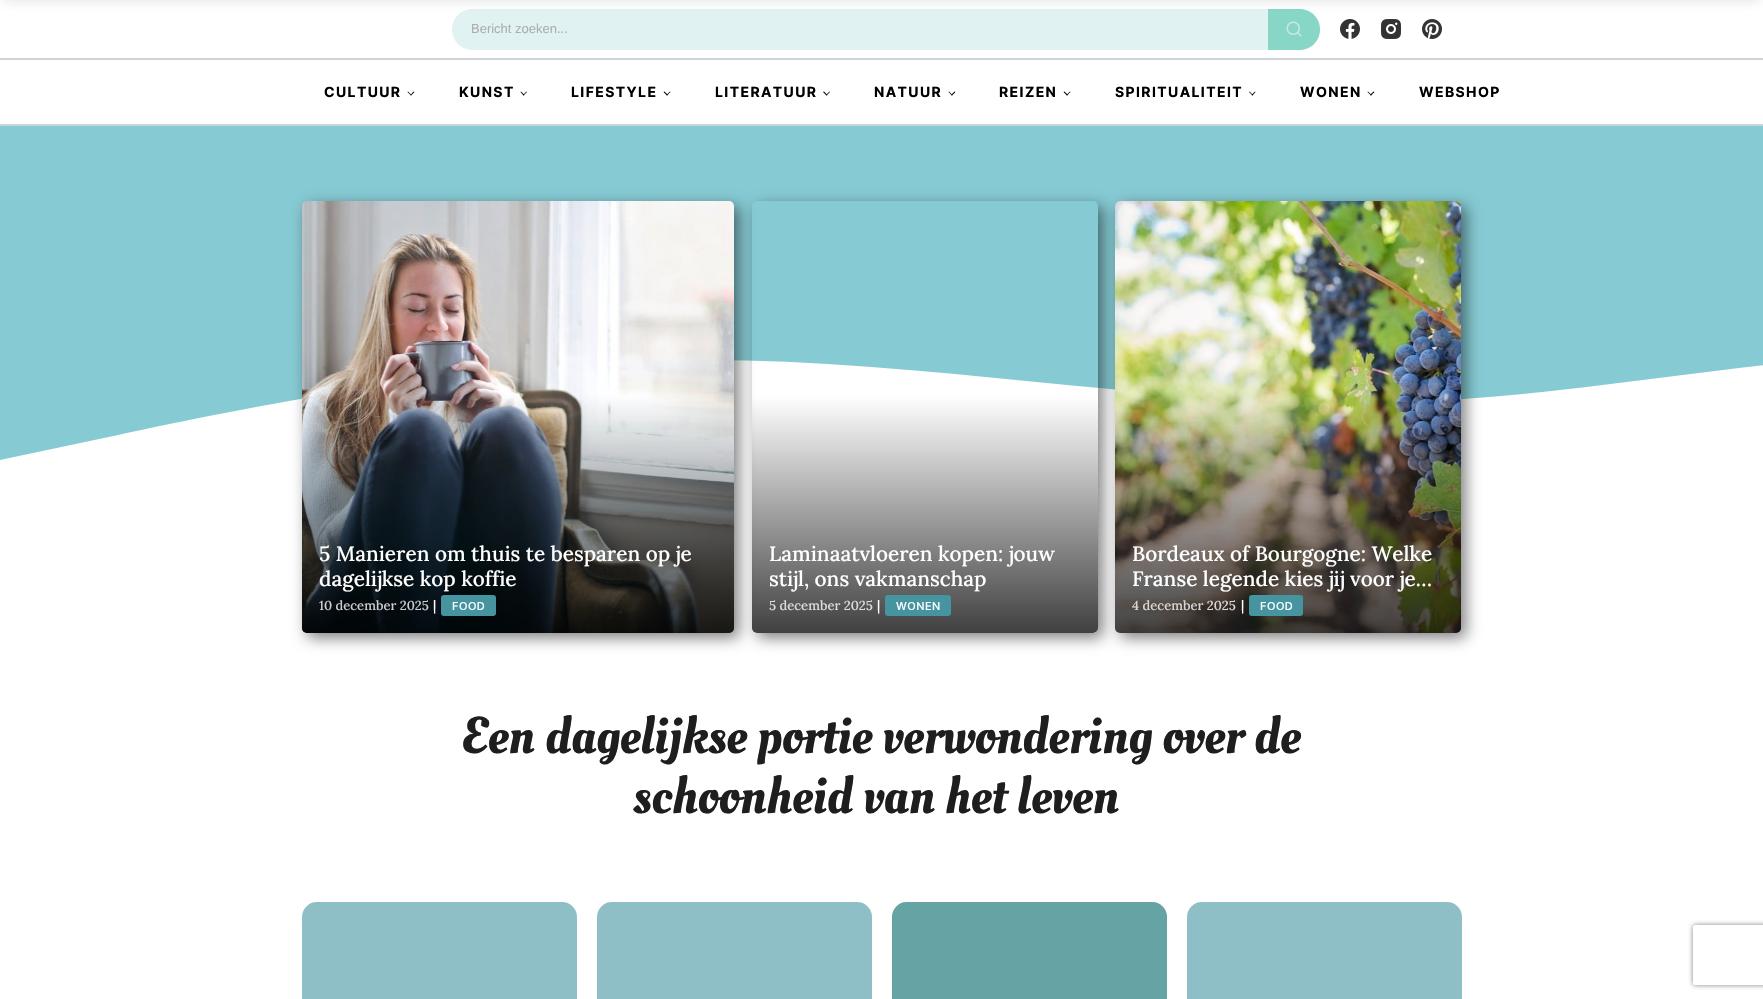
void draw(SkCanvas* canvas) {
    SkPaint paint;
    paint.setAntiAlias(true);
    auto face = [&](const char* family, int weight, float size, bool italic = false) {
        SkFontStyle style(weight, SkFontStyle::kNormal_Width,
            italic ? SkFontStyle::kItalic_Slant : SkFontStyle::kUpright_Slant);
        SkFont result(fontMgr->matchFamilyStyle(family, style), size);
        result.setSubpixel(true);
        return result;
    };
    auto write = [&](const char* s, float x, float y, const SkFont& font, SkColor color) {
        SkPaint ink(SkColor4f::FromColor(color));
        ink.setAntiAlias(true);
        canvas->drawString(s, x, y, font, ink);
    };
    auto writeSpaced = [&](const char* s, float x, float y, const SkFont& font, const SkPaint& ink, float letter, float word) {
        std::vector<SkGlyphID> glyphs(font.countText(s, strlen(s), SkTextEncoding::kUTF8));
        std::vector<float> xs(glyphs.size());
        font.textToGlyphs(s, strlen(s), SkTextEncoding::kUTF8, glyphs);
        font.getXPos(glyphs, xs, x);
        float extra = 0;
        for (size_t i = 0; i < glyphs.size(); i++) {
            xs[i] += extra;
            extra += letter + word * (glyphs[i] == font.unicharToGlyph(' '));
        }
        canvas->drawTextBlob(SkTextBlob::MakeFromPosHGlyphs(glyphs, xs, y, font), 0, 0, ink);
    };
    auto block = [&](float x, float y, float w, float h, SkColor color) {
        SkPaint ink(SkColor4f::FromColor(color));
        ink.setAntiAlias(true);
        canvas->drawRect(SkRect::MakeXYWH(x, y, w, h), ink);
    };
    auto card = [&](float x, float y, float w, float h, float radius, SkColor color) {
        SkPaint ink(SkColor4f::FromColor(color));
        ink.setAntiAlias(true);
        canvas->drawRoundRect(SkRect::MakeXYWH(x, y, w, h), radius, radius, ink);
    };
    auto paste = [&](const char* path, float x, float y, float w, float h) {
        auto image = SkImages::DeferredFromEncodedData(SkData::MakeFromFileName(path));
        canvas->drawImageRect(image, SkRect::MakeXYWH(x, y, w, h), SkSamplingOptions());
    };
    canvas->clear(SK_ColorWHITE);
    paint.setColor(SkColorSetRGB(225, 242, 242));
    canvas->drawPath(SkPathBuilder().moveTo(472.5f, 9).lineTo(1268, 9).lineTo(1268, 50).lineTo(472.5f, 50).cubicTo(461, 50, 452, 41, 452, 29.5f).cubicTo(452, 18, 461, 9, 472.5f, 9).close().detach(), paint);
    paint.setColor(SkColorSetRGB(136, 215, 198));
    canvas->drawPath(SkPathBuilder().moveTo(1268, 9).lineTo(1299.5f, 9).cubicTo(1311, 9, 1320, 18, 1320, 29.5f).cubicTo(1320, 41, 1311, 50, 1299.5f, 50).lineTo(1268, 50).close().detach(), paint);
    paste("pic2.png", 1340, 19, 20, 20);
    paste("pic3.png", 1381, 19, 20, 20);
    paste("pic4.png", 1422, 19, 20, 20);
    paint.setColor(SkColorSetARGB(36, 25, 25, 25));
    paint.setMaskFilter(SkMaskFilter::MakeBlur(kNormal_SkBlurStyle, 6.5f));
    canvas->drawRect(SkRect::MakeXYWH(3, -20, 1757, 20), paint);
    paint.setMaskFilter(nullptr);
    auto kFont1 = face("Liberation Sans", 400, 13);
    write("Bericht zoeken...", 471, 33, kFont1, SkColorSetRGB(173, 173, 173));
    paste("pic1.png", 1286, 21, 16, 16);
    block(0, 58, 1763, 2, SkColorSetRGB(207, 211, 215));
    block(0, 124, 1763, 2, SkColorSetRGB(207, 211, 215));
    auto kFont2 = face("Inter", 700, 14);
    paint.setColor(SK_ColorBLACK);
    writeSpaced("CULTUUR", 324, 97, kFont2, paint, 1.4f, 0);
    canvas->drawPath(SkPathBuilder().moveTo(414.5f, 92).lineTo(411, 95.5f).lineTo(410.5f, 95).lineTo(413.5f, 91.5f).close().detach(), paint);
    canvas->drawPath(SkPathBuilder().moveTo(411.5f, 95).lineTo(411, 95.5f).lineTo(407.5f, 92).lineTo(408, 91.5f).close().detach(), paint);
    writeSpaced("KUNST", 459, 97, kFont2, paint, 1.4f, 0);
    canvas->drawPath(SkPathBuilder().moveTo(527, 92).lineTo(523.5f, 95.5f).lineTo(523, 95).lineTo(526.5f, 91.5f).close().detach(), paint);
    canvas->drawPath(SkPathBuilder().moveTo(524.5f, 95).lineTo(523.5f, 95.5f).lineTo(520.5f, 92).lineTo(521, 91.5f).close().detach(), paint);
    writeSpaced("LIFESTYLE", 571, 97, kFont2, paint, 1.4f, 0);
    canvas->drawPath(SkPathBuilder().moveTo(670.5f, 92).lineTo(667, 95.5f).lineTo(666.5f, 95).lineTo(670, 91.5f).close().detach(), paint);
    canvas->drawPath(SkPathBuilder().moveTo(668, 95).lineTo(667, 95.5f).lineTo(663.5f, 92).lineTo(664.5f, 91.5f).close().detach(), paint);
    writeSpaced("LITERATUUR", 715, 97, kFont2, paint, 1.4f, 0);
    canvas->drawPath(SkPathBuilder().moveTo(830, 92).lineTo(826.5f, 95.5f).lineTo(826, 95).lineTo(829.5f, 91.5f).close().detach(), paint);
    canvas->drawPath(SkPathBuilder().moveTo(827.5f, 95).lineTo(826.5f, 95.5f).lineTo(823, 92).lineTo(824, 91.5f).close().detach(), paint);
    writeSpaced("NATUUR", 874, 97, kFont2, paint, 1.4f, 0);
    canvas->drawPath(SkPathBuilder().moveTo(955.5f, 92).lineTo(952, 95.5f).lineTo(951, 95).lineTo(954.5f, 91.5f).close().detach(), paint);
    canvas->drawPath(SkPathBuilder().moveTo(952.5f, 95).lineTo(952, 95.5f).lineTo(948.5f, 92).lineTo(949, 91.5f).close().detach(), paint);
    writeSpaced("REIZEN", 999, 97, kFont2, paint, 1.4f, 0);
    canvas->drawPath(SkPathBuilder().moveTo(1070.5f, 92).lineTo(1067, 95.5f).lineTo(1066.5f, 95).lineTo(1070, 91.5f).close().detach(), paint);
    canvas->drawPath(SkPathBuilder().moveTo(1068, 95).lineTo(1067, 95.5f).lineTo(1063.5f, 92).lineTo(1064.5f, 91.5f).close().detach(), paint);
    writeSpaced("SPIRITUALITEIT", 1115, 97, kFont2, paint, 1.4f, 0);
    canvas->drawPath(SkPathBuilder().moveTo(1255.5f, 92).lineTo(1252.5f, 95.5f).lineTo(1251.5f, 95).lineTo(1255, 91.5f).close().detach(), paint);
    canvas->drawPath(SkPathBuilder().moveTo(1253, 95).lineTo(1252.5f, 95.5f).lineTo(1249, 92).lineTo(1249.5f, 91.5f).close().detach(), paint);
    writeSpaced("WONEN", 1300, 97, kFont2, paint, 1.4f, 0);
    canvas->drawPath(SkPathBuilder().moveTo(1374.5f, 92).lineTo(1371, 95.5f).lineTo(1370, 95).lineTo(1373.5f, 91.5f).close().detach(), paint);
    canvas->drawPath(SkPathBuilder().moveTo(1371.5f, 95).lineTo(1371, 95.5f).lineTo(1367.5f, 92).lineTo(1368, 91.5f).close().detach(), paint);
    writeSpaced("WEBSHOP", 1419, 97, kFont2, paint, 1.4f, 0);
    block(0, 126, 1763, 334, SkColorSetRGB(134, 202, 211));
    canvas->save();
    canvas->clipRect(SkRect::MakeXYWH(0, 210, 1763, 498));
    paint.setColor(SK_ColorWHITE);
    canvas->drawPath(SkPathBuilder().moveTo(0, 460).lineTo(118, 435).cubicTo(235, 410, 470, 360, 705, 360).cubicTo(940, 360, 1175, 410, 1410, 402).cubicTo(1645, 393, 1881, 327, 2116, 360).cubicTo(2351, 393, 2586, 527, 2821, 568).cubicTo(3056, 610, 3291, 560, 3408, 535).lineTo(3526, 510).lineTo(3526, 710).lineTo(0, 710).close().detach(), paint);
    canvas->restore();
    paint.setColor(SkColorSetARGB(128, 0, 0, 0));
    paint.setMaskFilter(SkMaskFilter::MakeBlur(kNormal_SkBlurStyle, 7.5f));
    canvas->drawRoundRect(SkRect::MakeXYWH(307, 206, 432, 432), 5, 5, paint);
    paint.setMaskFilter(nullptr);
    paste("pic5.png", 302, 201, 432, 432);
    canvas->save();
    canvas->clipPath(SkPathBuilder(SkPathFillType::kEvenOdd).moveTo(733, 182).lineTo(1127, 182).lineTo(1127, 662).lineTo(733, 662).close().moveTo(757, 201).lineTo(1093, 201).cubicTo(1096, 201, 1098, 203, 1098, 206).lineTo(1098, 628).cubicTo(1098, 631, 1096, 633, 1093, 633).lineTo(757, 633).cubicTo(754, 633, 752, 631, 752, 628).lineTo(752, 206).cubicTo(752, 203, 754, 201, 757, 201).close().detach(), true);
    paint.setMaskFilter(SkMaskFilter::MakeBlur(kNormal_SkBlurStyle, 7.5f));
    canvas->drawRoundRect(SkRect::MakeXYWH(757, 206, 346, 432), 5, 5, paint);
    paint.setMaskFilter(nullptr);
    canvas->restore();
    {
        const SkColor colors[] = {SkColorSetARGB(0, 255, 255, 255), SkColorSetARGB(0, 0, 0, 0), SkColorSetARGB(191, 0, 0, 0)};
        const float stops[] = {0, 0.45f, 1};
        const SkPoint ends[] = {{518, 201}, {518, 633}};
        paint.setShader(SkGradientShader::MakeLinear(ends, colors, stops, 3, SkTileMode::kClamp));
        paint.setAlpha(255);
    }
    canvas->drawRoundRect(SkRect::MakeXYWH(302, 201, 432, 432), 5, 5, paint);
    auto kFont3 = face("Lora", 500, 20.75f);
    write("5 Manieren om thuis te besparen op je", 319, 561, kFont3, SK_ColorWHITE);
    write("dagelijkse kop koffie", 319, 586, kFont3, SK_ColorWHITE);
    auto kFont4 = face("Lora", 500, 13);
    write("10 december 2025", 319, 610, kFont4, SkColorSetRGB(205, 206, 207));
    write("|", 433, 610, kFont4, SK_ColorWHITE);
    card(441, 595, 55, 21, 3, SkColorSetRGB(69, 148, 160));
    auto kFont5 = face("Inter", 500, 11);
    paint.setShader(nullptr);
    paint.setColor(SK_ColorWHITE);
    writeSpaced("FOOD", 452, 610, kFont5, paint, 0.5f, 0);
    paint.setColor(SkColorSetARGB(128, 0, 0, 0));
    paint.setMaskFilter(SkMaskFilter::MakeBlur(kNormal_SkBlurStyle, 7.5f));
    canvas->drawRoundRect(SkRect::MakeXYWH(1120, 206, 346, 432), 5, 5, paint);
    paint.setMaskFilter(nullptr);
    {
        const SkColor colors[] = {SkColorSetARGB(0, 255, 255, 255), SkColorSetARGB(0, 0, 0, 0), SkColorSetARGB(191, 0, 0, 0)};
        const float stops[] = {0, 0.45f, 1};
        const SkPoint ends[] = {{925, 201}, {925, 633}};
        paint.setShader(SkGradientShader::MakeLinear(ends, colors, stops, 3, SkTileMode::kClamp));
        paint.setAlpha(255);
    }
    canvas->drawRoundRect(SkRect::MakeXYWH(752, 201, 346, 432), 5, 5, paint);
    write("Laminaatvloeren kopen: jouw", 769, 561, kFont3, SK_ColorWHITE);
    write("stijl, ons vakmanschap", 769, 586, kFont3, SK_ColorWHITE);
    write("5 december 2025", 769, 610, kFont4, SkColorSetRGB(221, 221, 221));
    write("|", 877, 610, kFont4, SK_ColorWHITE);
    card(885, 595, 66, 21, 3, SkColorSetRGB(69, 148, 160));
    paint.setShader(nullptr);
    paint.setColor(SK_ColorWHITE);
    writeSpaced("WONEN", 896, 610, kFont5, paint, 0.5f, 0);
    paste("pic6.png", 1115, 201, 346, 432);
    {
        const SkColor colors[] = {SkColorSetARGB(0, 255, 255, 255), SkColorSetARGB(0, 0, 0, 0), SkColorSetARGB(191, 0, 0, 0)};
        const float stops[] = {0, 0.45f, 1};
        const SkPoint ends[] = {{1288, 201}, {1288, 633}};
        paint.setShader(SkGradientShader::MakeLinear(ends, colors, stops, 3, SkTileMode::kClamp));
        paint.setAlpha(255);
    }
    canvas->drawRoundRect(SkRect::MakeXYWH(1115, 201, 346, 432), 5, 5, paint);
    write("Bordeaux of Bourgogne: Welke", 1132, 561, kFont3, SK_ColorWHITE);
    write("Franse legende kies jij voor je…", 1132, 586, kFont3, SK_ColorWHITE);
    write("4 december 2025", 1132, 610, kFont4, SkColorSetRGB(218, 216, 215));
    write("|", 1241, 610, kFont4, SK_ColorWHITE);
    card(1249, 595, 54, 21, 3, SkColorSetRGB(69, 148, 160));
    paint.setShader(nullptr);
    paint.setColor(SK_ColorWHITE);
    writeSpaced("FOOD", 1260, 610, kFont5, paint, 0.5f, 0);
    auto kFont6 = face("Oleo Script", 400, 51.8f);
    write("Een dagelijkse portie verwondering over de", 461, 753, kFont6, SkColorSetRGB(30, 30, 30));
    write("schoonheid van het leven", 633, 813, kFont6, SkColorSetRGB(30, 30, 30));
    card(302, 902, 275, 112, 15, SkColorSetRGB(143, 191, 198));
    card(597, 902, 275, 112, 15, SkColorSetRGB(143, 191, 198));
    card(892, 902, 275, 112, 15, SkColorSetRGB(150, 185, 169));
    card(892, 902, 275, 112, 15, SkColorSetARGB(153, 69, 148, 160));
    card(1187, 902, 275, 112, 15, SkColorSetRGB(143, 191, 198));
    canvas->save();
    canvas->clipPath(SkPathBuilder(SkPathFillType::kEvenOdd).moveTo(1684, 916).lineTo(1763, 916).lineTo(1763, 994).lineTo(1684, 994).close().moveTo(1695, 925).lineTo(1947, 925).cubicTo(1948, 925, 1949, 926, 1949, 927).lineTo(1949, 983).cubicTo(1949, 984, 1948, 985, 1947, 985).lineTo(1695, 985).cubicTo(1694, 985, 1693, 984, 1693, 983).lineTo(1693, 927).cubicTo(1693, 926, 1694, 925, 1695, 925).close().detach(), true);
    paint.setColor(SkColorSetRGB(128, 128, 128));
    paint.setMaskFilter(SkMaskFilter::MakeBlur(kNormal_SkBlurStyle, 2.5f));
    canvas->drawRoundRect(SkRect::MakeXYWH(1693, 925, 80, 60), 2, 2, paint);
    paint.setMaskFilter(nullptr);
    canvas->restore();
}
